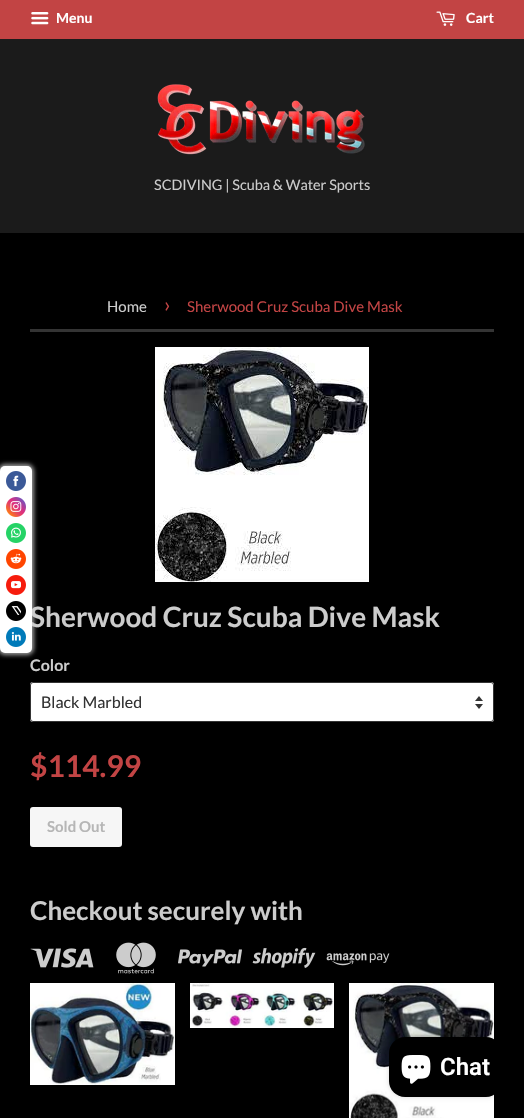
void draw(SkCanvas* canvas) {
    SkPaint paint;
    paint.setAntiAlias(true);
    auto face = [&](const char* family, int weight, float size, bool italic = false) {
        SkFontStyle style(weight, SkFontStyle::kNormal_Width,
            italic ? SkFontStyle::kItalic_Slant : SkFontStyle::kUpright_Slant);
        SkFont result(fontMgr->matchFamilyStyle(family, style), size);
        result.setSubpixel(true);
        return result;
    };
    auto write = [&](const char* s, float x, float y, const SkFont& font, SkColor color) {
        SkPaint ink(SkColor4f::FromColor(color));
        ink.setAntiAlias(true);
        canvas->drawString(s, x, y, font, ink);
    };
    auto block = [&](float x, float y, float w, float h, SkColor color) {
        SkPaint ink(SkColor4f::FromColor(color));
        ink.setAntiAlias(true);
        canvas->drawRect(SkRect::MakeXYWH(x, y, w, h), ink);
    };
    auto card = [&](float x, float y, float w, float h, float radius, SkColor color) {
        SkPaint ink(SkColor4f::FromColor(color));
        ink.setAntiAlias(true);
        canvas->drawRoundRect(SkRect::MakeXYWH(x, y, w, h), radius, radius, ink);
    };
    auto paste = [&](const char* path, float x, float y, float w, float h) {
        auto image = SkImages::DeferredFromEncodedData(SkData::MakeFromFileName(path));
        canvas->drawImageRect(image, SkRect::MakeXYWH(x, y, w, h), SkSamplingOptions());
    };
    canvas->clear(SK_ColorBLACK);
    block(0, 0, 524, 39, SkColorSetRGB(194, 68, 68));
    paste("pic1.png", 31, 12, 18, 13);
    auto kFont1 = face("Lato", 700, 14);
    write("Menu", 56, 23, kFont1, SK_ColorWHITE);
    paste("pic2.png", 436, 11, 19, 15);
    write("Cart", 466, 23, kFont1, SK_ColorWHITE);
    block(0, 39, 524, 194, SkColorSetRGB(27, 27, 27));
    paste("pic3.png", 157, 84, 208, 71);
    auto kFont2 = face("Lato", 400, 14.4f);
    write("SCDIVING | Scuba & Water Sports", 154, 190, kFont2, SkColorSetRGB(204, 204, 204));
    paint.setColor(SkColorSetRGB(158, 158, 158));
    paint.setMaskFilter(SkMaskFilter::MakeBlur(kNormal_SkBlurStyle, 2));
    canvas->drawRoundRect(SkRect::MakeXYWH(-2, 464, 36, 191), 7, 7, paint);
    paint.setMaskFilter(nullptr);
    auto kFont3 = face("Lato", 700, 28);
    write("Sherwood Cruz Scuba Dive Mask", 30, 627, kFont3, SkColorSetRGB(204, 204, 204));
    card(0, 466, 32, 187, 5, SK_ColorWHITE);
    paste("pic4.png", 6, 471, 20, 20);
    paste("pic5.png", 6, 497, 20, 20);
    paste("pic6.png", 6, 523, 20, 20);
    paste("pic7.png", 6, 549, 20, 20);
    paste("pic8.png", 6, 575, 20, 20);
    paste("pic9.png", 6, 601, 20, 20);
    paste("pic10.png", 6, 627, 20, 20);
    block(30, 329, 464, 3, SkColorSetRGB(52, 52, 52));
    auto kFont4 = face("Lato", 400, 15);
    write("Home", 107, 312, kFont4, SkColorSetRGB(204, 204, 204));
    auto kFont5 = face("Lato", 400, 21);
    write("›", 164, 312, kFont5, SkColorSetRGB(194, 68, 68));
    write("Sherwood Cruz Scuba Dive Mask", 187, 312, kFont4, SkColorSetRGB(194, 68, 68));
    paste("pic11.png", 155, 347, 214, 235);
    auto kFont6 = face("Lato", 700, 16);
    write("Color", 30, 671, kFont6, SkColorSetRGB(204, 204, 204));
    card(30, 682, 464, 40, 3, SK_ColorWHITE);
    paste("pic12.png", 475, 696, 8, 13);
    paint.setStyle(SkPaint::kStroke_Style);
    paint.setStrokeWidth(1);
    paint.setColor(SkColorSetRGB(52, 52, 52));
    canvas->drawRoundRect(SkRect::MakeXYWH(30.5f, 682.5f, 463, 39), 2.5f, 2.5f, paint);
    auto kFont7 = face("Lato", 400, 16);
    write("Black Marbled", 41, 708, kFont7, SkColorSetRGB(51, 51, 51));
    auto kFont8 = face("Lato", 700, 30);
    write("$114.99", 30, 777, kFont8, SkColorSetRGB(194, 68, 68));
    card(30, 807, 92, 40, 3, SkColorSetRGB(246, 246, 246));
    auto kFont9 = face("Lato", 700, 15);
    write("Sold Out", 47, 832, kFont9, SkColorSetRGB(182, 182, 182));
    auto kFont10 = face("Lato", 700, 26);
    write("Checkout securely with", 30, 920, kFont10, SkColorSetRGB(204, 204, 204));
    paste("pic13.png", 30, 948, 64, 20);
    paste("pic14.png", 116, 942, 40, 32);
    paste("pic15.png", 178, 949, 64, 18);
    paste("pic16.png", 252, 947, 64, 21);
    paste("pic17.png", 326, 953, 64, 13);
    paste("pic18.png", 30, 983, 145, 102);
    paste("pic19.png", 190, 983, 144, 45);
    paste("pic20.png", 349, 983, 145, 135);
    paint.setStyle(SkPaint::kFill_Style);
    paint.setColor(SkColorSetARGB(38, 0, 0, 0));
    paint.setMaskFilter(SkMaskFilter::MakeBlur(kNormal_SkBlurStyle, 2.5f));
    canvas->drawRoundRect(SkRect::MakeXYWH(389, 1037, 113, 60), 16, 16, paint);
    paint.setMaskFilter(nullptr);
    card(389, 1037, 113, 60, 16, SK_ColorBLACK);
    paste("pic21.png", 401, 1055, 30, 29);
    auto kFont11 = face("Roboto", 600, 24);
    write("Chat", 440, 1075, kFont11, SK_ColorWHITE);
}
